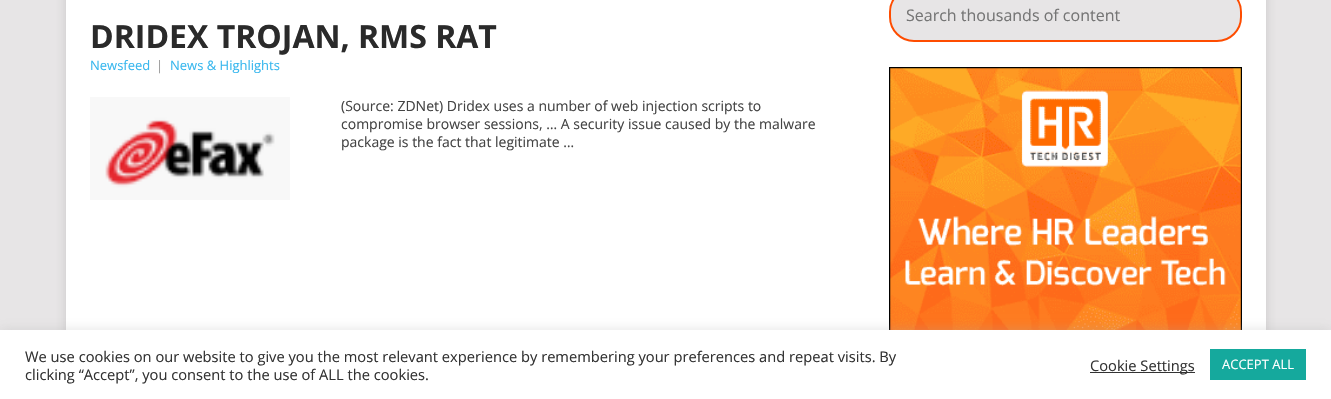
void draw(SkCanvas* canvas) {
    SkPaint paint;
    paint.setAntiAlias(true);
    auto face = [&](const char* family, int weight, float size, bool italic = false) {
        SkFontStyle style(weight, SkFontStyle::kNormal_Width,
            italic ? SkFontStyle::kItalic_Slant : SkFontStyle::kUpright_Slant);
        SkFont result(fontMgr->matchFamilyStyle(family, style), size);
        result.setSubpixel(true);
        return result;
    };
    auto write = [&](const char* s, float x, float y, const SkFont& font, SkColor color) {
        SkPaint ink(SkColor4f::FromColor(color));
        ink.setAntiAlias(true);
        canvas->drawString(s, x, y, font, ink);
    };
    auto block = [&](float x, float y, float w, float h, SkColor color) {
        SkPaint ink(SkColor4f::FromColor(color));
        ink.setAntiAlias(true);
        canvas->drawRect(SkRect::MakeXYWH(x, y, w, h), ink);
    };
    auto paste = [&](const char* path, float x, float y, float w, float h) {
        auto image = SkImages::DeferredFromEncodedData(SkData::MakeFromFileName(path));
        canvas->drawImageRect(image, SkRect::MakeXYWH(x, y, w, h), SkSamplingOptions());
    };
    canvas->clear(SkColorSetRGB(231, 229, 230));
    paint.setColor(SkColorSetARGB(43, 50, 50, 50));
    paint.setMaskFilter(SkMaskFilter::MakeBlur(kNormal_SkBlurStyle, 5));
    canvas->drawRect(SkRect::MakeXYWH(66, -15, 1200, 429), paint);
    paint.setMaskFilter(nullptr);
    block(66, 0, 1200, 330, SK_ColorWHITE);
    paint.setColor(SkColorSetRGB(231, 229, 230));
    canvas->drawRoundRect(SkRect::MakeXYWH(890, -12, 351, 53), 24, 24, paint);
    paint.setStyle(SkPaint::kStroke_Style);
    paint.setStrokeWidth(2);
    paint.setColor(SkColorSetRGB(254, 76, 0));
    canvas->drawRoundRect(SkRect::MakeXYWH(890, -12, 351, 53), 24, 24, paint);
    auto kFont1 = face("Open Sans", 400, 16);
    write("Search thousands of content", 906, 21, kFont1, SkColorSetRGB(117, 117, 117));
    paste("pic1.png", 889, 67, 353, 263);
    auto kFont2 = face("Open Sans", 700, 32);
    write("DRIDEX TROJAN, RMS RAT", 90, 48, kFont2, SkColorSetRGB(42, 42, 42));
    auto kFont3 = face("Open Sans", 400, 13);
    write("Newsfeed", 90, 70, kFont3, SkColorSetRGB(56, 183, 238));
    write("|", 156, 70, kFont3, SkColorSetRGB(153, 153, 153));
    write("News & Highlights", 170, 70, kFont3, SkColorSetRGB(56, 183, 238));
    paste("pic2.png", 90, 97, 200, 103);
    auto kFont4 = face("Open Sans", 400, 14);
    write("(Source: ZDNet) Dridex uses a number of web injection scripts to", 341, 111, kFont4, SkColorSetRGB(68, 68, 68));
    write("compromise browser sessions, … A security issue caused by the malware", 341, 129, kFont4, SkColorSetRGB(68, 68, 68));
    write("package is the fact that legitimate …", 341, 147, kFont4, SkColorSetRGB(68, 68, 68));
    paint.setStyle(SkPaint::kFill_Style);
    paint.setColor(SkColorSetARGB(77, 172, 171, 171));
    paint.setMaskFilter(SkMaskFilter::MakeBlur(kNormal_SkBlurStyle, 5));
    canvas->drawRect(SkRect::MakeXYWH(0, 329, 1331, 69), paint);
    paint.setMaskFilter(nullptr);
    block(0, 330, 1331, 69, SK_ColorWHITE);
    auto kFont5 = face("Open Sans", 400, 14.67f);
    write("We use cookies on our website to give you the most relevant experience by remembering your preferences and repeat visits. By", 25, 362, kFont5, SkColorSetRGB(51, 51, 51));
    write("clicking “Accept”, you consent to the use of ALL the cookies.", 25, 380, kFont5, SkColorSetRGB(51, 51, 51));
    block(1090, 372, 105, 1, SkColorSetRGB(51, 51, 51));
    write("Cookie Settings", 1090, 371, kFont5, SkColorSetRGB(51, 51, 51));
    block(1210, 349, 96, 31, SkColorSetRGB(21, 169, 157));
    write("ACCEPT ALL", 1222, 369, kFont3, SK_ColorWHITE);
}
